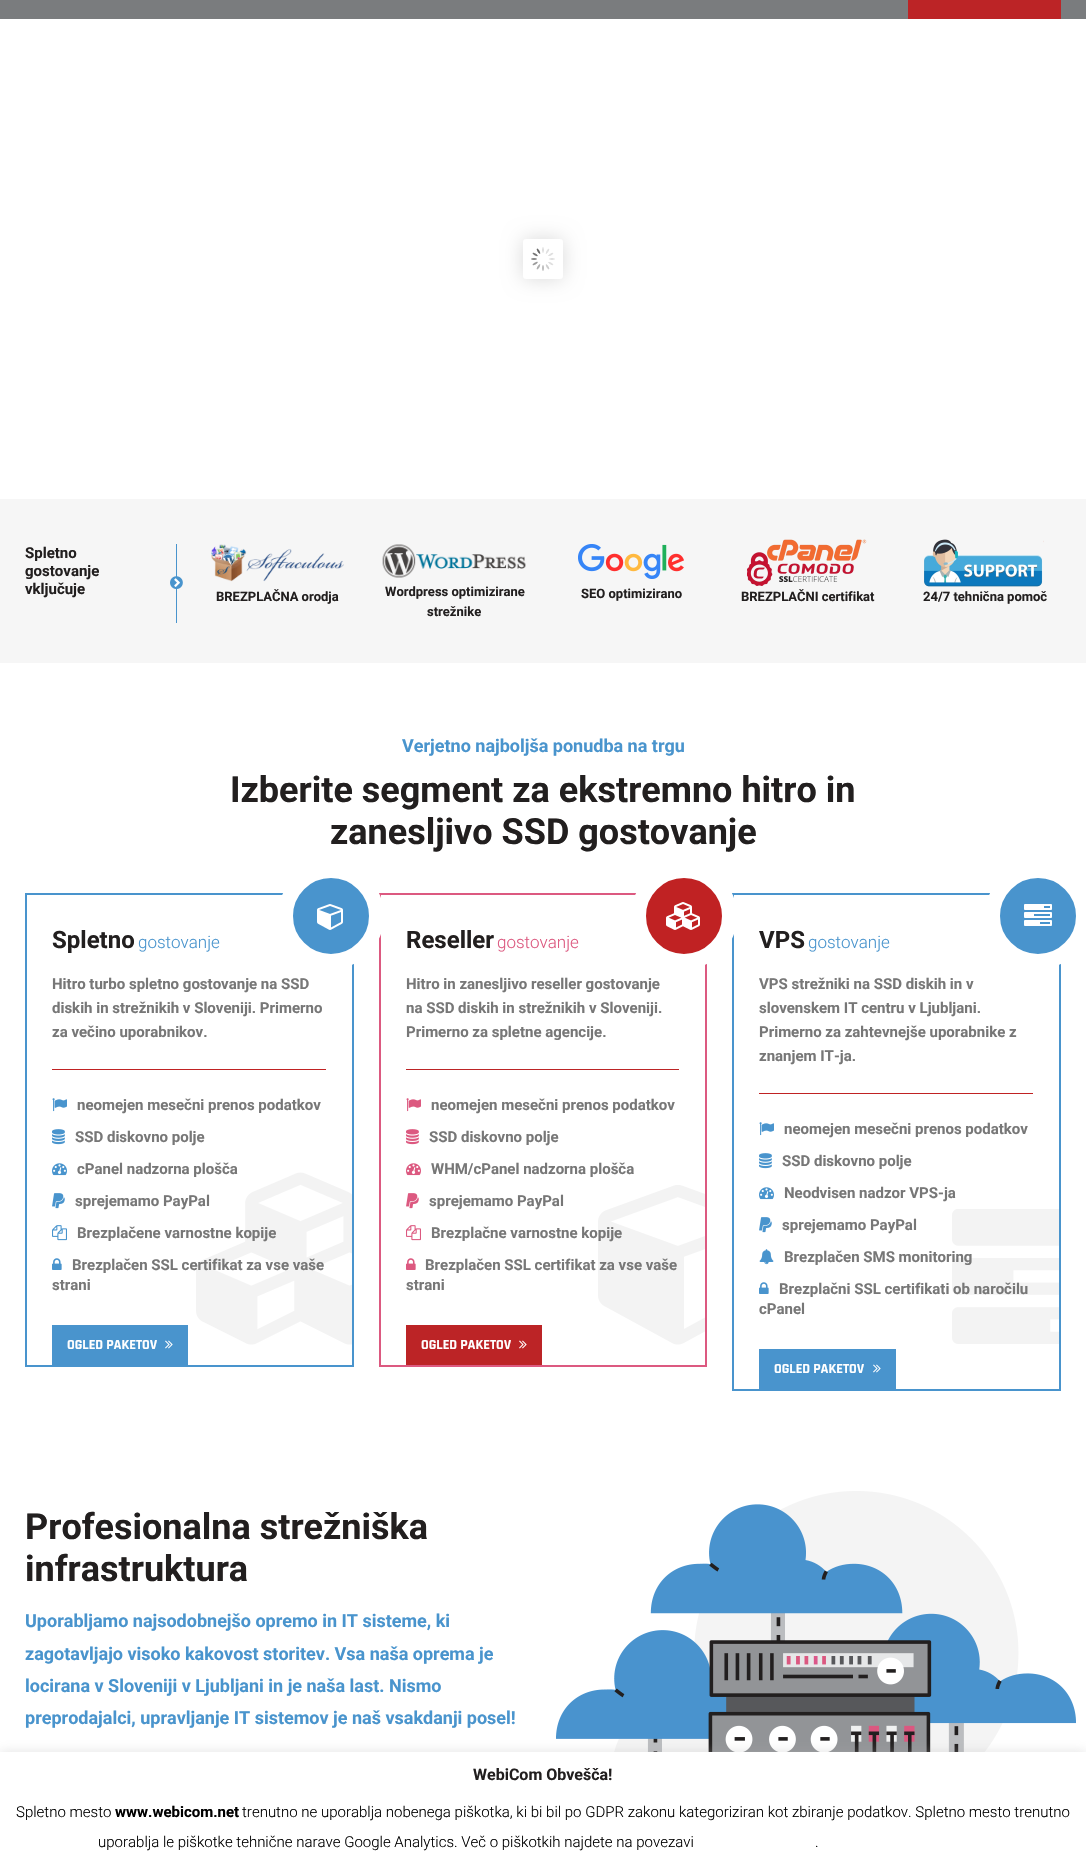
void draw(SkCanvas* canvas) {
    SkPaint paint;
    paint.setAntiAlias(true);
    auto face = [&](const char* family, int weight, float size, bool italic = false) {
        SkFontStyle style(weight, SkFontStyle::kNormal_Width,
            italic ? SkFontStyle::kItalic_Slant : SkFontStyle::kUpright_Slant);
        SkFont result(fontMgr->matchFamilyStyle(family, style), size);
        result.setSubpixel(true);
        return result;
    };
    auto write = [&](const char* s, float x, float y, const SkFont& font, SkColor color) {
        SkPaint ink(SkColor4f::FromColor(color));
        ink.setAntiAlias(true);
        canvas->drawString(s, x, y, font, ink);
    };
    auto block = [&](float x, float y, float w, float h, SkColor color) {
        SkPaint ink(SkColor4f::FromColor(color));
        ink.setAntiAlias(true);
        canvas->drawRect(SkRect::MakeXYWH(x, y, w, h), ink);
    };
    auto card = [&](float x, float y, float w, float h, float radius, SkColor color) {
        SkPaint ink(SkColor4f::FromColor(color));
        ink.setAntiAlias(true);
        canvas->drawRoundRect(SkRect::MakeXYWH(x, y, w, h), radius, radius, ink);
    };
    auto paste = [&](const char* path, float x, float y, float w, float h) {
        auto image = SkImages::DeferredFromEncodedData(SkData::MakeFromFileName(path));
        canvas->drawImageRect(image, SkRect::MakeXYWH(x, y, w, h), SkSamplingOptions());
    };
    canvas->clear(SK_ColorWHITE);
    block(0, 0, 1086, 19, SkColorSetRGB(122, 124, 126));
    block(908, 0, 153, 19, SkColorSetRGB(188, 36, 38));
    paint.setColor(SkColorSetARGB(38, 0, 0, 0));
    paint.setMaskFilter(SkMaskFilter::MakeBlur(kNormal_SkBlurStyle, 10));
    canvas->drawRoundRect(SkRect::MakeXYWH(523, 239, 40, 40), 3, 3, paint);
    paint.setMaskFilter(nullptr);
    card(523, 239, 40, 40, 3, SK_ColorWHITE);
    paste("pic1.png", 531, 247, 24, 24);
    block(0, 499, 1086, 164, SkColorSetRGB(246, 246, 246));
    auto kFont1 = face("Roboto", 700, 15);
    write("Spletno", 25, 558, kFont1, SkColorSetRGB(34, 31, 31));
    block(176, 544, 1, 79, SkColorSetRGB(73, 148, 205));
    write("gostovanje", 25, 576, kFont1, SkColorSetRGB(34, 31, 31));
    write("vključuje", 25, 594, kFont1, SkColorSetRGB(34, 31, 31));
    paint.setColor(SK_ColorWHITE);
    canvas->drawCircle(176, 583, 6, paint);
    paste("pic2.png", 170, 576, 13, 13);
    paste("pic3.png", 211, 544, 133, 38);
    auto kFont2 = face("Roboto", 700, 13);
    write("BREZPLAČNA orodja", 216, 601, kFont2, SkColorSetRGB(34, 31, 31));
    paste("pic4.png", 382, 544, 144, 34);
    write("Wordpress optimizirane", 385, 596, kFont2, SkColorSetRGB(34, 31, 31));
    write("strežnike", 427, 616, kFont2, SkColorSetRGB(34, 31, 31));
    paste("pic5.png", 578, 544, 106, 35);
    write("SEO optimizirano", 581, 598, kFont2, SkColorSetRGB(34, 31, 31));
    paste("pic6.png", 747, 539, 120, 47);
    write("BREZPLAČNI certifikat", 741, 601, kFont2, SkColorSetRGB(34, 31, 31));
    paste("pic7.png", 924, 539, 120, 48);
    write("24/7 tehnična pomoč", 923, 601, kFont2, SkColorSetRGB(34, 31, 31));
    auto kFont3 = face("Roboto", 700, 18);
    write("Verjetno najboljša ponudba na trgu", 402, 752, kFont3, SkColorSetRGB(73, 148, 205));
    auto kFont4 = face("Roboto", 700, 36);
    write("Izberite segment za ekstremno hitro in", 230, 802, kFont4, SkColorSetRGB(34, 31, 31));
    write("zanesljivo SSD gostovanje", 330, 844, kFont4, SkColorSetRGB(34, 31, 31));
    paint.setStyle(SkPaint::kStroke_Style);
    paint.setStrokeWidth(2);
    paint.setColor(SkColorSetRGB(73, 148, 205));
    canvas->drawRect(SkRect::MakeXYWH(26, 894, 327, 472), paint);
    paint.setColor(SkColorSetRGB(220, 89, 128));
    canvas->drawRect(SkRect::MakeXYWH(380, 894, 326, 472), paint);
    paint.setStyle(SkPaint::kFill_Style);
    paint.setColor(SkColorSetRGB(73, 148, 205));
    canvas->drawCircle(331, 916, 45.5f, paint);
    paint.setStyle(SkPaint::kStroke_Style);
    paint.setStrokeWidth(15);
    paint.setColor(SK_ColorWHITE);
    canvas->drawCircle(331, 916, 45.5f, paint);
    paste("pic8.png", 317, 904, 26, 26);
    auto kFont5 = face("Roboto", 700, 24);
    write("Spletno", 52, 948, kFont5, SkColorSetRGB(34, 31, 31));
    auto kFont6 = face("Roboto", 300, 17);
    write("gostovanje", 138, 948, kFont6, SkColorSetRGB(73, 148, 205));
    write("Hitro turbo spletno gostovanje na SSD", 52, 989, kFont1, SkColorSetRGB(119, 119, 119));
    write("diskih in strežnikih v Sloveniji. Primerno", 52, 1013, kFont1, SkColorSetRGB(119, 119, 119));
    write("za večino uporabnikov.", 52, 1037, kFont1, SkColorSetRGB(119, 119, 119));
    block(52, 1069, 274, 1, SkColorSetRGB(192, 34, 35));
    paste("pic9.png", 52, 1098, 15, 14);
    write("neomejen mesečni prenos podatkov", 77, 1110, kFont1, SkColorSetRGB(119, 119, 119));
    paste("pic10.png", 52, 1129, 13, 16);
    write("SSD diskovno polje", 75, 1142, kFont1, SkColorSetRGB(119, 119, 119));
    paste("pic11.png", 52, 1163, 15, 13);
    paste("pic16.png", 196, 1172, 156, 173);
    write("cPanel nadzorna plošča", 77, 1174, kFont1, SkColorSetRGB(119, 119, 119));
    paste("pic12.png", 52, 1193, 13, 16);
    write("sprejemamo PayPal", 75, 1206, kFont1, SkColorSetRGB(119, 119, 119));
    paste("pic13.png", 52, 1225, 15, 16);
    write("Brezplačene varnostne kopije", 77, 1238, kFont1, SkColorSetRGB(119, 119, 119));
    paste("pic14.png", 52, 1258, 10, 12);
    write("Brezplačen SSL certifikat za vse vaše", 72, 1270, kFont1, SkColorSetRGB(119, 119, 119));
    write("strani", 52, 1290, kFont1, SkColorSetRGB(119, 119, 119));
    block(52, 1325, 136, 40, SkColorSetRGB(73, 148, 205));
    auto kFont7 = face("Rajdhani", 700, 14);
    write("OGLED PAKETOV", 67, 1349, kFont7, SK_ColorWHITE);
    paste("pic15.png", 165, 1340, 8, 9);
    paint.setStrokeWidth(2);
    paint.setColor(SkColorSetRGB(73, 148, 205));
    canvas->drawRect(SkRect::MakeXYWH(733, 894, 327, 496), paint);
    paint.setStyle(SkPaint::kFill_Style);
    paint.setColor(SkColorSetRGB(192, 34, 35));
    canvas->drawCircle(684, 916, 45.5f, paint);
    paint.setStyle(SkPaint::kStroke_Style);
    paint.setStrokeWidth(15);
    paint.setColor(SK_ColorWHITE);
    canvas->drawCircle(684, 916, 45.5f, paint);
    paste("pic17.png", 666, 902, 34, 28);
    write("Reseller", 406, 948, kFont5, SkColorSetRGB(34, 31, 31));
    write("gostovanje", 497, 948, kFont6, SkColorSetRGB(220, 89, 128));
    write("Hitro in zanesljivo reseller gostovanje", 406, 989, kFont1, SkColorSetRGB(119, 119, 119));
    write("na SSD diskih in strežnikih v Sloveniji.", 406, 1013, kFont1, SkColorSetRGB(119, 119, 119));
    write("Primerno za spletne agencije.", 406, 1037, kFont1, SkColorSetRGB(119, 119, 119));
    block(406, 1069, 273, 1, SkColorSetRGB(188, 36, 38));
    paste("pic18.png", 406, 1098, 15, 14);
    write("neomejen mesečni prenos podatkov", 431, 1110, kFont1, SkColorSetRGB(119, 119, 119));
    paste("pic19.png", 406, 1129, 13, 16);
    write("SSD diskovno polje", 429, 1142, kFont1, SkColorSetRGB(119, 119, 119));
    paste("pic20.png", 406, 1163, 15, 13);
    write("WHM/cPanel nadzorna plošča", 431, 1174, kFont1, SkColorSetRGB(119, 119, 119));
    paste("pic21.png", 406, 1193, 13, 16);
    write("sprejemamo PayPal", 429, 1206, kFont1, SkColorSetRGB(119, 119, 119));
    paste("pic22.png", 406, 1225, 15, 16);
    paste("pic25.png", 598, 1185, 107, 160);
    write("Brezplačne varnostne kopije", 431, 1238, kFont1, SkColorSetRGB(119, 119, 119));
    paste("pic23.png", 406, 1258, 10, 12);
    write("Brezplačen SSL certifikat za vse vaše", 425, 1270, kFont1, SkColorSetRGB(119, 119, 119));
    write("strani", 406, 1290, kFont1, SkColorSetRGB(119, 119, 119));
    block(406, 1325, 136, 40, SkColorSetRGB(188, 36, 38));
    write("OGLED PAKETOV", 421, 1349, kFont7, SK_ColorWHITE);
    paste("pic24.png", 519, 1340, 8, 9);
    paint.setStyle(SkPaint::kFill_Style);
    paint.setColor(SkColorSetRGB(73, 148, 205));
    canvas->drawCircle(1038, 916, 45.5f, paint);
    paint.setStyle(SkPaint::kStroke_Style);
    paint.setColor(SK_ColorWHITE);
    canvas->drawCircle(1038, 916, 45.5f, paint);
    paste("pic26.png", 1024, 904, 28, 22);
    write("VPS", 759, 948, kFont5, SkColorSetRGB(34, 31, 31));
    write("gostovanje", 808, 948, kFont6, SkColorSetRGB(73, 148, 205));
    write("VPS strežniki na SSD diskih in v", 759, 989, kFont1, SkColorSetRGB(119, 119, 119));
    write("slovenskem IT centru v Ljubljani.", 759, 1013, kFont1, SkColorSetRGB(119, 119, 119));
    write("Primerno za zahtevnejše uporabnike z", 759, 1037, kFont1, SkColorSetRGB(119, 119, 119));
    write("znanjem IT-ja.", 759, 1061, kFont1, SkColorSetRGB(119, 119, 119));
    block(759, 1093, 274, 1, SkColorSetRGB(192, 34, 35));
    paste("pic9.png", 759, 1122, 15, 14);
    write("neomejen mesečni prenos podatkov", 784, 1134, kFont1, SkColorSetRGB(119, 119, 119));
    paste("pic10.png", 759, 1153, 13, 16);
    write("SSD diskovno polje", 782, 1166, kFont1, SkColorSetRGB(119, 119, 119));
    paste("pic11.png", 759, 1187, 15, 13);
    write("Neodvisen nadzor VPS-ja", 784, 1198, kFont1, SkColorSetRGB(119, 119, 119));
    paste("pic12.png", 759, 1217, 13, 16);
    write("sprejemamo PayPal", 782, 1230, kFont1, SkColorSetRGB(119, 119, 119));
    paste("pic27.png", 759, 1249, 15, 16);
    paste("pic28.png", 952, 1209, 107, 135);
    write("Brezplačen SMS monitoring", 784, 1262, kFont1, SkColorSetRGB(119, 119, 119));
    paste("pic14.png", 759, 1282, 10, 12);
    write("Brezplačni SSL certifikati ob naročilu", 779, 1294, kFont1, SkColorSetRGB(119, 119, 119));
    write("cPanel", 759, 1314, kFont1, SkColorSetRGB(119, 119, 119));
    block(759, 1349, 137, 40, SkColorSetRGB(73, 148, 205));
    write("OGLED PAKETOV", 774, 1373, kFont7, SK_ColorWHITE);
    paste("pic15.png", 873, 1364, 8, 9);
    write("Profesionalna strežniška", 25, 1539, kFont4, SkColorSetRGB(34, 31, 31));
    write("infrastruktura", 25, 1581, kFont4, SkColorSetRGB(34, 31, 31));
    write("Uporabljamo najsodobnejšo opremo in IT sisteme, ki", 25, 1627, kFont3, SkColorSetRGB(73, 148, 205));
    write("zagotavljajo visoko kakovost storitev. Vsa naša oprema je", 25, 1660, kFont3, SkColorSetRGB(73, 148, 205));
    write("locirana v Sloveniji v Ljubljani in je naša last. Nismo", 25, 1692, kFont3, SkColorSetRGB(73, 148, 205));
    write("preprodajalci, upravljanje IT sistemov je naš vsakdanji posel!", 25, 1724, kFont3, SkColorSetRGB(73, 148, 205));
    paste("pic29.png", 556, 1491, 520, 261);
    paint.setStyle(SkPaint::kFill_Style);
    paint.setColor(SkColorSetARGB(77, 172, 171, 171));
    paint.setMaskFilter(SkMaskFilter::MakeBlur(kNormal_SkBlurStyle, 5));
    canvas->drawRect(SkRect::MakeXYWH(0, 1751, 1086, 118), paint);
    paint.setMaskFilter(nullptr);
    block(0, 1752, 1086, 118, SK_ColorWHITE);
    auto kFont8 = face("Roboto", 700, 16);
    write("WebiCom Obvešča!", 473, 1780, kFont8, SkColorSetRGB(34, 31, 31));
    auto kFont9 = face("Roboto", 300, 15);
    write("Spletno mesto", 16, 1817, kFont9, SK_ColorBLACK);
    write("www.webicom.net", 115, 1817, kFont1, SK_ColorBLACK);
    write("trenutno ne uporablja nobenega piškotka, ki bi bil po GDPR zakonu kategoriziran kot zbiranje podatkov. Spletno mesto trenutno", 242, 1817, kFont9, SK_ColorBLACK);
    write("uporablja le piškotke tehnične narave Google Analytics. Več o piškotkih najdete na povezavi", 98, 1847, kFont9, SK_ColorBLACK);
    write(".", 815, 1847, kFont9, SK_ColorBLACK);
}
